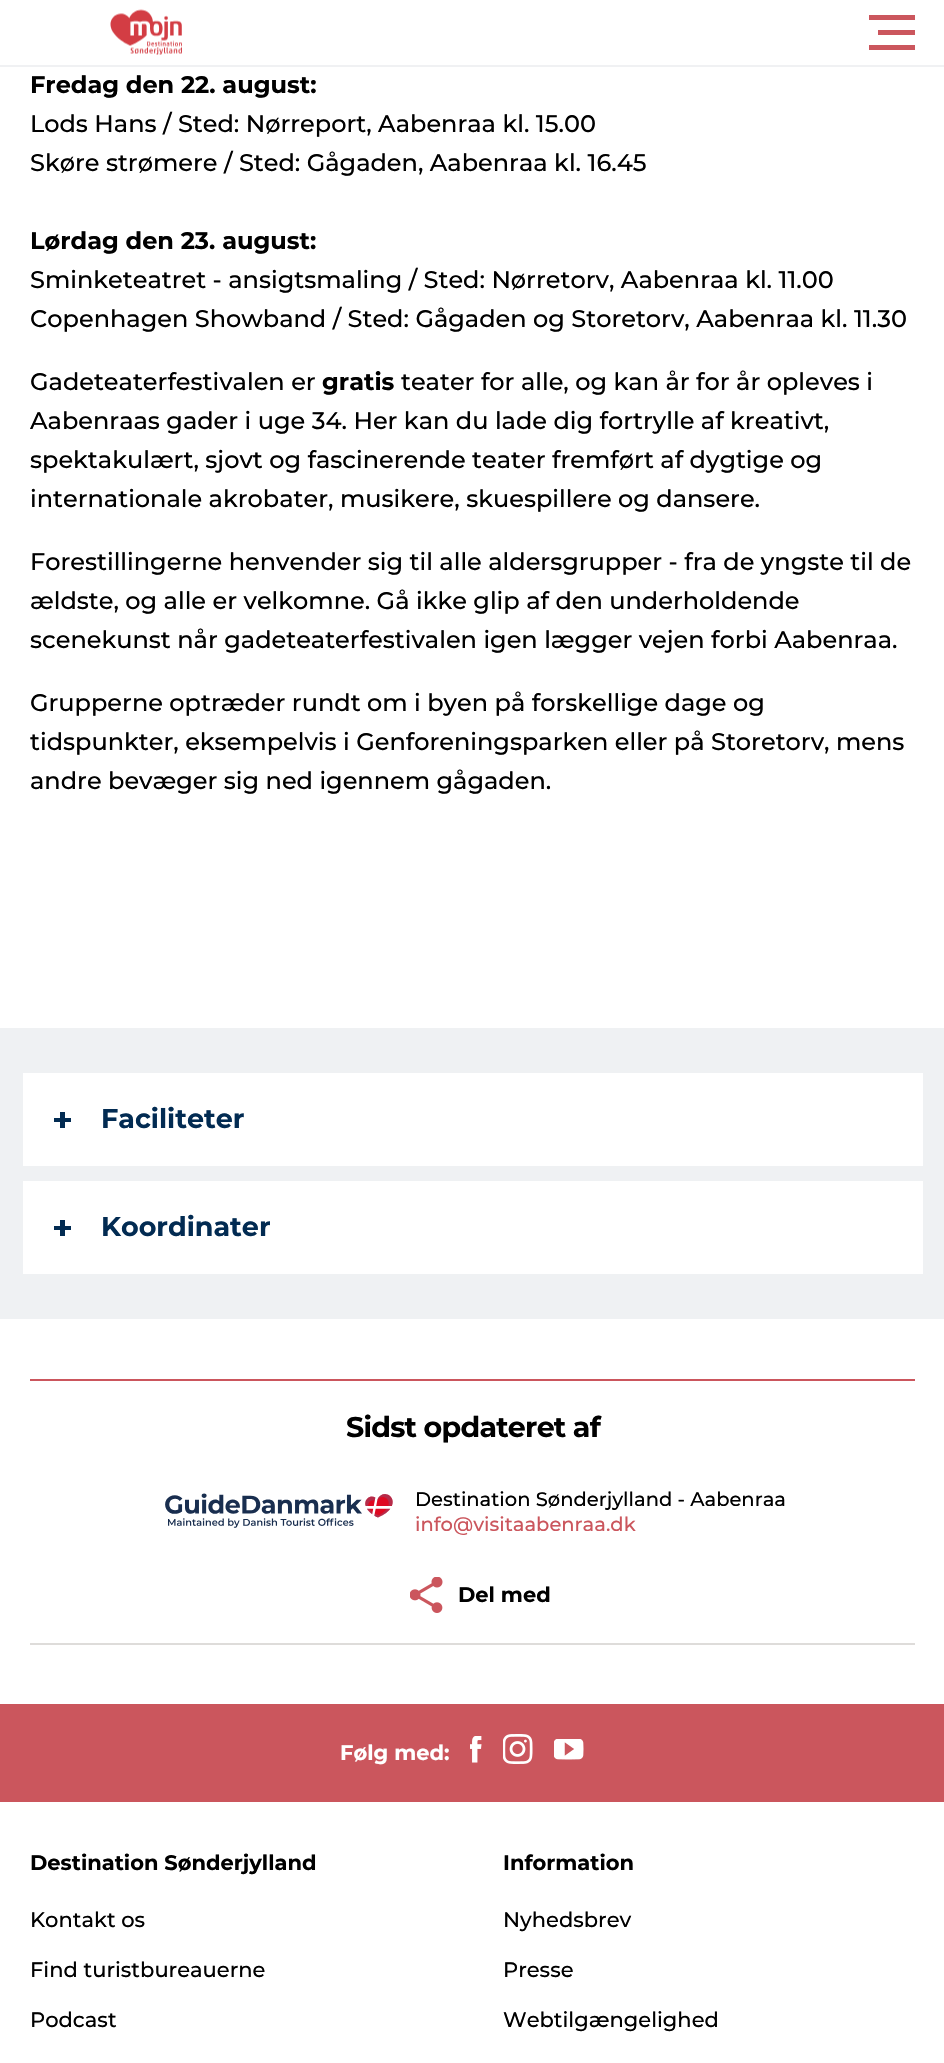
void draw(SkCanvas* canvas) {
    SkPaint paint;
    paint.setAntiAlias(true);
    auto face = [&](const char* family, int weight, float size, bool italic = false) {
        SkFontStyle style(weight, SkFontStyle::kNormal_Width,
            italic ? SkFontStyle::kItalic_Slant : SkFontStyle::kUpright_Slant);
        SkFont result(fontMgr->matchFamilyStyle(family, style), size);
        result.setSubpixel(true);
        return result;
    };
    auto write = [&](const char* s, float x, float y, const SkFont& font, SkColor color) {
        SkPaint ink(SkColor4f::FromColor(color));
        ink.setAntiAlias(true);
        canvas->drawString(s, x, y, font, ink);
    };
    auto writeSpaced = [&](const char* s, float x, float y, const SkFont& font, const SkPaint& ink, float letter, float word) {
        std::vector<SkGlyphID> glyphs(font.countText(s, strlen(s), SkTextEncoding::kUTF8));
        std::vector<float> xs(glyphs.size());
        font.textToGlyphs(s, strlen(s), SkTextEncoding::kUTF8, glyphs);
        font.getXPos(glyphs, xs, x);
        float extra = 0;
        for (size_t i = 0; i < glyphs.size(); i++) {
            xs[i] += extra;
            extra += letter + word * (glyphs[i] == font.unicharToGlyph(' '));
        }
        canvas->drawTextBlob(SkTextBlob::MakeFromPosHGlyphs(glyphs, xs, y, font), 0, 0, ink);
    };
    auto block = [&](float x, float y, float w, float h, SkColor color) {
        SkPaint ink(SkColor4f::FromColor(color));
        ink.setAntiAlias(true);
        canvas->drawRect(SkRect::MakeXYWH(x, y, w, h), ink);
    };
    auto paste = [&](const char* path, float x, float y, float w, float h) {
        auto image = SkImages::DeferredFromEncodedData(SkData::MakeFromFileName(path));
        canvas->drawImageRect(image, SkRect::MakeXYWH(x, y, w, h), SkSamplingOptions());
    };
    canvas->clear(SK_ColorWHITE);
    block(0, 65, 944, 2, SkColorSetRGB(240, 241, 243));
    paste("pic1.png", 110, 9, 72, 46);
    block(869, 15, 46, 5, SkColorSetRGB(203, 86, 93));
    block(878, 30, 37, 5, SkColorSetRGB(203, 86, 93));
    block(869, 45, 46, 5, SkColorSetRGB(203, 86, 93));
    auto kFont1 = face("Montserrat", 700, 24);
    write("Fredag den 22. august:", 30, 93, kFont1, SK_ColorBLACK);
    auto kFont2 = face("Montserrat", 500, 24);
    write("Lods Hans / Sted: Nørreport, Aabenraa kl. 15.00", 30, 132, kFont2, SK_ColorBLACK);
    write("Skøre strømere / Sted: Gågaden, Aabenraa kl. 16.45", 30, 171, kFont2, SK_ColorBLACK);
    write("Lørdag den 23. august:", 30, 249, kFont1, SK_ColorBLACK);
    write("Sminketeatret - ansigtsmaling / Sted: Nørretorv, Aabenraa kl. 11.00", 30, 288, kFont2, SK_ColorBLACK);
    write("Copenhagen Showband / Sted: Gågaden og Storetorv, Aabenraa kl. 11.30", 30, 327, kFont2, SK_ColorBLACK);
    write("Gadeteaterfestivalen er", 30, 390, kFont2, SK_ColorBLACK);
    write("gratis", 322, 390, kFont1, SK_ColorBLACK);
    write("teater for alle, og kan år for år opleves i", 401, 390, kFont2, SK_ColorBLACK);
    write("Aabenraas gader i uge 34. Her kan du lade dig fortrylle af kreativt,", 30, 429, kFont2, SK_ColorBLACK);
    write("spektakulært, sjovt og fascinerende teater fremført af dygtige og", 30, 468, kFont2, SK_ColorBLACK);
    write("internationale akrobater, musikere, skuespillere og dansere.", 30, 507, kFont2, SK_ColorBLACK);
    write("Forestillingerne henvender sig til alle aldersgrupper - fra de yngste til de", 30, 570, kFont2, SK_ColorBLACK);
    write("ældste, og alle er velkomne. Gå ikke glip af den underholdende", 30, 609, kFont2, SK_ColorBLACK);
    write("scenekunst når gadeteaterfestivalen igen lægger vejen forbi Aabenraa.", 30, 648, kFont2, SK_ColorBLACK);
    write("Grupperne optræder rundt om i byen på forskellige dage og", 30, 711, kFont2, SK_ColorBLACK);
    write("tidspunkter, eksempelvis i Genforeningsparken eller på Storetorv, mens", 30, 750, kFont2, SK_ColorBLACK);
    write("andre bevæger sig ned igennem gågaden.", 30, 789, kFont2, SK_ColorBLACK);
    block(0, 1028, 944, 291, SkColorSetRGB(239, 241, 243));
    block(23, 1073, 900, 93, SK_ColorWHITE);
    block(54, 1118, 17, 4, SkColorSetRGB(2, 43, 82));
    block(60, 1112, 5, 16, SkColorSetRGB(2, 43, 82));
    auto kFont3 = face("Montserrat", 700, 27);
    write("Faciliteter", 101, 1128, kFont3, SkColorSetRGB(2, 43, 82));
    block(23, 1181, 900, 93, SK_ColorWHITE);
    block(54, 1226, 17, 4, SkColorSetRGB(2, 43, 82));
    block(60, 1220, 5, 16, SkColorSetRGB(2, 43, 82));
    write("Koordinater", 101, 1236, kFont3, SkColorSetRGB(2, 43, 82));
    block(30, 1379, 885, 2, SkColorSetRGB(203, 86, 93));
    block(30, 1643, 885, 2, SkColorSetRGB(222, 220, 218));
    auto kFont4 = face("Montserrat", 700, 28.5f);
    paint.setColor(SK_ColorBLACK);
    writeSpaced("Sidst opdateret af", 346, 1437, kFont4, paint, -0.75f, 0);
    paste("pic2.png", 165, 1493, 228, 35);
    auto kFont5 = face("Montserrat", 500, 19.5f);
    write("Destination Sønderjylland - Aabenraa", 415, 1506, kFont5, SK_ColorBLACK);
    write("info@visitaabenraa.dk", 415, 1531, kFont5, SkColorSetRGB(203, 86, 93));
    paste("pic3.png", 410, 1577, 33, 36);
    auto kFont6 = face("Montserrat", 700, 21);
    write("Del med", 458, 1602, kFont6, SK_ColorBLACK);
    block(0, 1704, 944, 98, SkColorSetRGB(203, 86, 93));
    write("Følg med:", 340, 1760, kFont6, SK_ColorWHITE);
    paste("pic4.png", 470, 1736, 12, 27);
    paste("pic5.png", 503, 1734, 30, 30);
    paste("pic6.png", 554, 1739, 30, 21);
    write("Destination Sønderjylland", 30, 1870, kFont6, SK_ColorBLACK);
    auto kFont7 = face("Montserrat", 500, 21);
    write("Kontakt os", 30, 1927, kFont7, SK_ColorBLACK);
    write("Find turistbureauerne", 30, 1977, kFont7, SK_ColorBLACK);
    write("Podcast", 30, 2027, kFont7, SK_ColorBLACK);
    write("Information", 503, 1870, kFont6, SK_ColorBLACK);
    write("Nyhedsbrev", 503, 1927, kFont7, SK_ColorBLACK);
    write("Presse", 503, 1977, kFont7, SK_ColorBLACK);
    write("Webtilgængelighed", 503, 2027, kFont7, SK_ColorBLACK);
}
